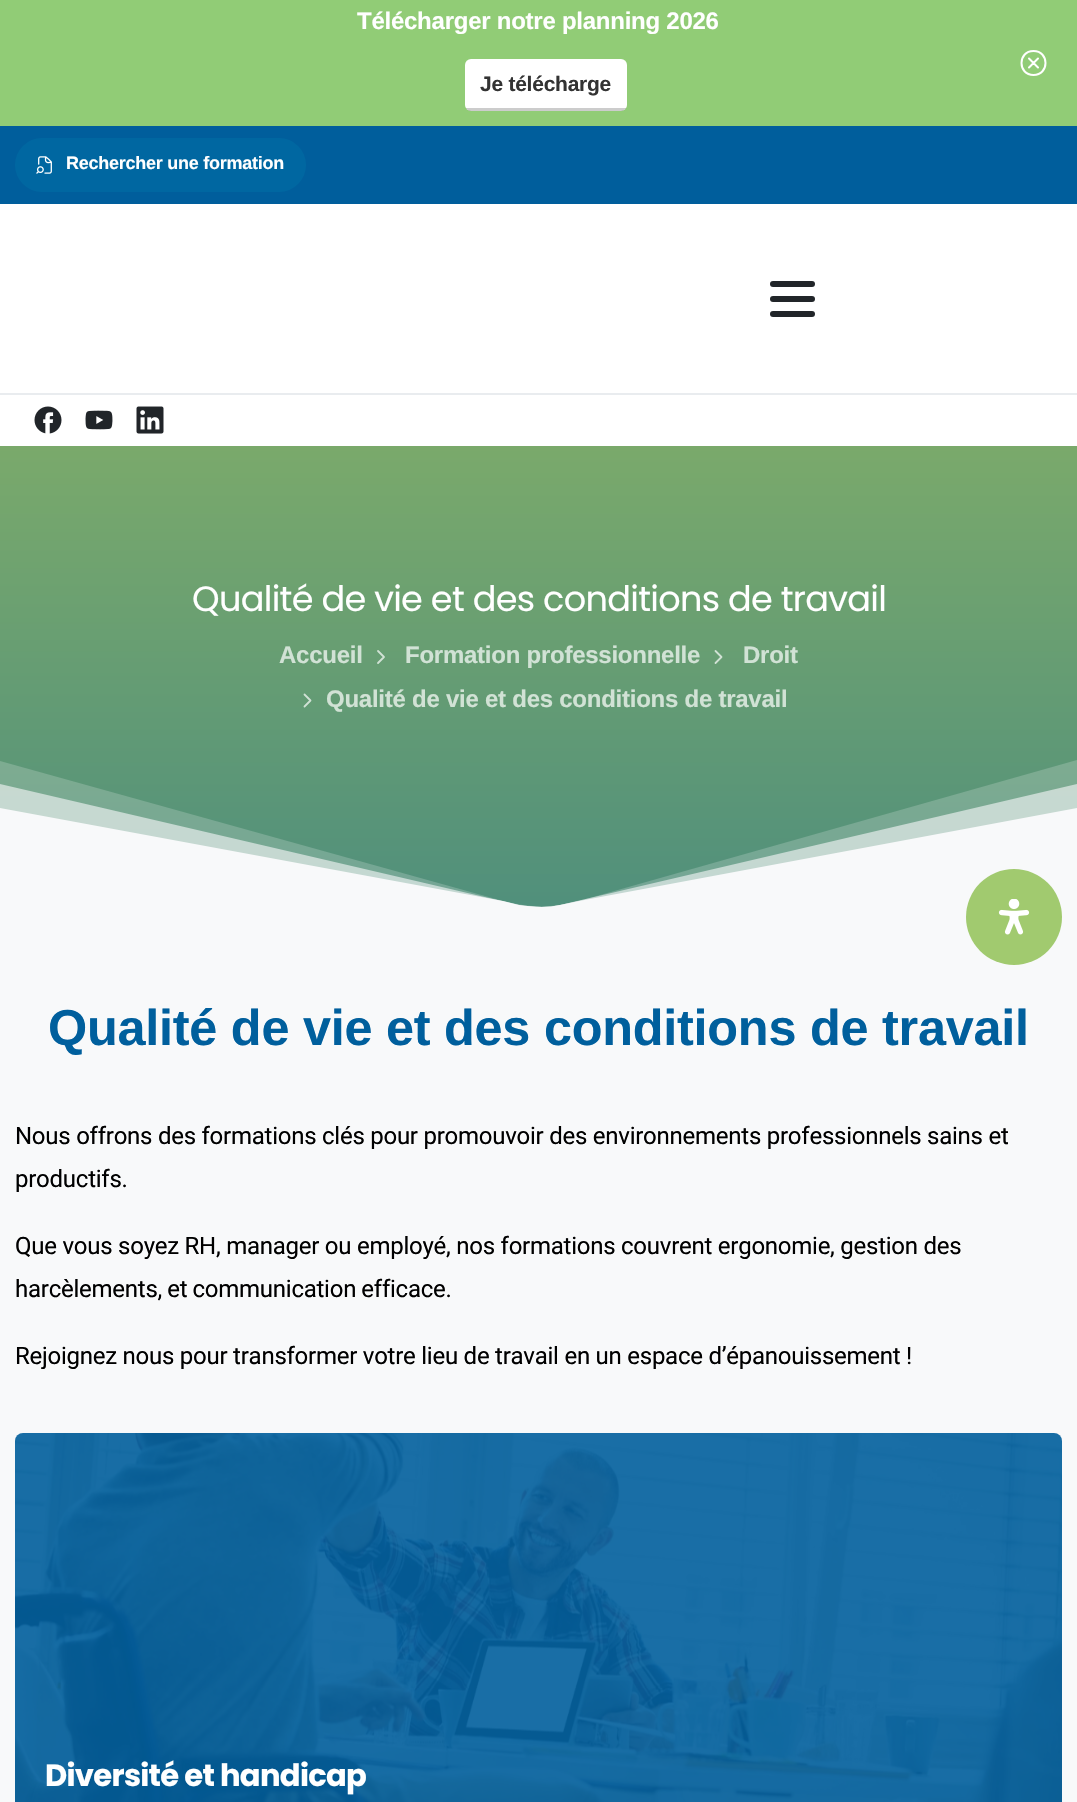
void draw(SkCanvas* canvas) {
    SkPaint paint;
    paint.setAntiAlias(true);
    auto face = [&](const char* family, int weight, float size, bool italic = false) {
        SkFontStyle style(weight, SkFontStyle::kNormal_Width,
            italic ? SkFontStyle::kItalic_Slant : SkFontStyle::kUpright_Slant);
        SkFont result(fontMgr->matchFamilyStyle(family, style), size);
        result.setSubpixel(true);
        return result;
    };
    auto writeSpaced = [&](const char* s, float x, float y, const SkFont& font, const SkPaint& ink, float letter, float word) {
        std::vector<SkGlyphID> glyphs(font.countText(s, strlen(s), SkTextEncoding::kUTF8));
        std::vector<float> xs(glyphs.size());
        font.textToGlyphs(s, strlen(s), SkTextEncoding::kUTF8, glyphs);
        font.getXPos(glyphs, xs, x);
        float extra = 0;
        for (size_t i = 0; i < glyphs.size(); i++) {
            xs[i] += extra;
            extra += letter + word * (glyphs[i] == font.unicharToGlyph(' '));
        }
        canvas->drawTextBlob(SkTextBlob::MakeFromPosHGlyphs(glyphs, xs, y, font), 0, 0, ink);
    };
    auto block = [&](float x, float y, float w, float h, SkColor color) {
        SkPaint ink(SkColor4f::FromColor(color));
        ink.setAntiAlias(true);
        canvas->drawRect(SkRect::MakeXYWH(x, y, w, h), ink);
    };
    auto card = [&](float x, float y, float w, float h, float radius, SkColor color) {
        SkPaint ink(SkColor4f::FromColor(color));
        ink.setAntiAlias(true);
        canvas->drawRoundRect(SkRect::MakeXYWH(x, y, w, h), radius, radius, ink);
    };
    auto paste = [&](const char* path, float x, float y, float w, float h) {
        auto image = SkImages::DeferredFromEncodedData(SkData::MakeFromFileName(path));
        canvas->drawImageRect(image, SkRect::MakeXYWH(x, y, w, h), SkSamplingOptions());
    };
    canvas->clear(SK_ColorWHITE);
    block(0, 0, 1077, 126, SkColorSetRGB(145, 204, 118));
    auto kFont1 = face("Liberation Sans", 700, 24);
    paint.setColor(SK_ColorWHITE);
    writeSpaced("Télécharger notre planning 2026", 357, 29, kFont1, paint, -0.25f, 0);
    card(465, 59, 162, 52, 6, SK_ColorWHITE);
    auto kFont2 = face("Liberation Sans", 700, 21);
    paint.setColor(SkColorSetRGB(51, 51, 51));
    writeSpaced("Je télécharge", 480, 91, kFont2, paint, -0.25f, 0);
    canvas->save();
    canvas->clipPath(SkPathBuilder().moveTo(471, 59).lineTo(621, 59).cubicTo(624.5f, 59, 627, 61.5f, 627, 65).lineTo(627, 105).cubicTo(627, 108.5f, 624.5f, 111, 621, 111).lineTo(471, 111).cubicTo(467.5f, 111, 465, 108.5f, 465, 105).lineTo(465, 65).cubicTo(465, 61.5f, 467.5f, 59, 471, 59).close().detach(), true);
    card(465, 108, 162, 3, 1.5f, SkColorSetARGB(51, 0, 0, 0));
    canvas->restore();
    paint.setStyle(SkPaint::kStroke_Style);
    paint.setStrokeWidth(2);
    paint.setStrokeCap(SkPaint::kRound_Cap);
    paint.setStrokeJoin(SkPaint::kRound_Join);
    paint.setColor(SK_ColorWHITE);
    canvas->drawPath(SkPathBuilder().moveTo(1033.5f, 75).cubicTo(1049.5f, 75, 1049.5f, 51, 1033.5f, 51).cubicTo(1017.5f, 51, 1017.5f, 75, 1033.5f, 75).close().moveTo(1038, 58.5f).lineTo(1029, 67.5f).moveTo(1029, 58.5f).lineTo(1038, 67.5f).detach(), paint);
    block(0, 126, 1077, 78, SkColorSetRGB(0, 94, 156));
    card(15, 138, 291, 54, 27, SkColorSetRGB(0, 103, 161));
    paste("pic1.png", 36, 156, 16, 18);
    auto kFont3 = face("Liberation Sans", 700, 18);
    paint.setStyle(SkPaint::kFill_Style);
    writeSpaced("Rechercher une formation", 66, 169, kFont3, paint, -0.25f, 0);
    card(770, 281, 45, 6, 3, SkColorSetRGB(33, 37, 41));
    card(770, 296, 45, 6, 3, SkColorSetRGB(33, 37, 41));
    card(770, 311, 45, 6, 3, SkColorSetRGB(33, 37, 41));
    block(0, 393, 1077, 2, SkColorSetRGB(233, 236, 239));
    paste("pic2.png", 34, 406, 28, 28);
    paste("pic3.png", 85, 410, 28, 20);
    paste("pic4.png", 136, 406, 28, 28);
    {
        const SkColor colors[] = {SkColorSetRGB(0, 94, 156), SkColorSetRGB(162, 194, 91)};
        const float stops[] = {0, 1};
        const SkPoint ends[] = {{539, 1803}, {539, 0}};
        paint.setShader(SkGradientShader::MakeLinear(ends, colors, stops, 2, SkTileMode::kClamp));
        paint.setAlpha(255);
    }
    canvas->drawRect(SkRect::MakeXYWH(0, 446, 1077, 461), paint);
    auto kFont4 = face("Poppins", 400, 35.1f);
    paint.setShader(nullptr);
    paint.setColor(SK_ColorWHITE);
    writeSpaced("Qualité de vie et des conditions de travail", 192, 611, kFont4, paint, -0.7f, 0);
    paint.setColor(SkColorSetRGB(209, 226, 213));
    writeSpaced("Accueil", 279, 663, kFont1, paint, -0.25f, 0);
    paint.setStyle(SkPaint::kStroke_Style);
    paint.setStrokeWidth(1.8f);
    canvas->drawPath(SkPathBuilder().moveTo(378, 663).lineTo(384, 657).lineTo(378, 651).detach(), paint);
    paint.setStyle(SkPaint::kFill_Style);
    writeSpaced("Formation professionnelle", 405, 663, kFont1, paint, -0.25f, 0);
    paint.setStyle(SkPaint::kStroke_Style);
    canvas->drawPath(SkPathBuilder().moveTo(715.5f, 663).lineTo(721.5f, 657).lineTo(715.5f, 651).detach(), paint);
    paint.setStyle(SkPaint::kFill_Style);
    writeSpaced("Droit", 743, 663, kFont1, paint, -0.25f, 0);
    paint.setStyle(SkPaint::kStroke_Style);
    paint.setColor(SkColorSetRGB(208, 225, 213));
    canvas->drawPath(SkPathBuilder().moveTo(304.5f, 706.5f).lineTo(310.5f, 700.5f).lineTo(304.5f, 694.5f).detach(), paint);
    paint.setStyle(SkPaint::kFill_Style);
    paint.setColor(SkColorSetRGB(209, 226, 213));
    writeSpaced("Qualité de vie et des conditions de travail", 326, 707, kFont1, paint, -0.25f, 0);
    paint.setColor(SkColorSetARGB(51, 248, 249, 250));
    canvas->drawPath(SkPathBuilder().moveTo(1077, 760).lineTo(1077, 910).lineTo(0, 910).lineTo(0, 761).lineTo(503, 901).cubicTo(531, 908, 552, 908, 579, 901).close().detach(), paint);
    paint.setColor(SkColorSetARGB(153, 248, 249, 250));
    canvas->drawPath(SkPathBuilder().moveTo(1077, 784).lineTo(1077, 910).lineTo(0, 910).lineTo(0, 784).lineTo(519, 905).cubicTo(533, 907, 547, 908, 560, 905).close().detach(), paint);
    paint.setColor(SkColorSetRGB(248, 249, 250));
    canvas->drawPath(SkPathBuilder().moveTo(1077, 808).lineTo(1077, 910).lineTo(0, 910).lineTo(0, 808).lineTo(503, 901).lineTo(519, 905).cubicTo(533, 907, 547, 908, 560, 905).lineTo(579, 901).close().detach(), paint);
    block(0, 910, 1077, 892, SkColorSetRGB(248, 249, 250));
    auto kFont5 = face("Liberation Sans", 700, 50.4f);
    paint.setColor(SkColorSetRGB(0, 95, 157));
    writeSpaced("Qualité de vie et des conditions de travail", 48, 1045, kFont5, paint, -0.25f, 0);
    auto kFont6 = face("Roboto", 400, 24);
    paint.setColor(SK_ColorBLACK);
    writeSpaced("Nous offrons des formations clés pour promouvoir des environnements professionnels sains et", 15, 1144, kFont6, paint, -0.25f, 0);
    writeSpaced("productifs.", 15, 1187, kFont6, paint, -0.25f, 0);
    writeSpaced("Que vous soyez RH, manager ou employé, nos formations couvrent ergonomie, gestion des", 15, 1254, kFont6, paint, -0.25f, 0);
    writeSpaced("harcèlements, et communication efficace.", 15, 1297, kFont6, paint, -0.25f, -0.5f);
    writeSpaced("Rejoignez nous pour transformer votre lieu de travail en un espace d’épanouissement !", 15, 1364, kFont6, paint, -0.25f, 0);
    card(15, 1433, 1047, 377, 8, SkColorSetRGB(0, 94, 156));
    paste("pic5.png", 15, 1433, 1047, 369);
    auto kFont7 = face("Poppins", 700, 30.6f);
    paint.setColor(SK_ColorWHITE);
    writeSpaced("Diversité et handicap", 45, 1786, kFont7, paint, -0.7f, 0);
    paint.setColor(SkColorSetRGB(161, 202, 111));
    canvas->drawCircle(1014, 917, 48, paint);
    paste("pic6.png", 998, 899, 32, 36);
}
